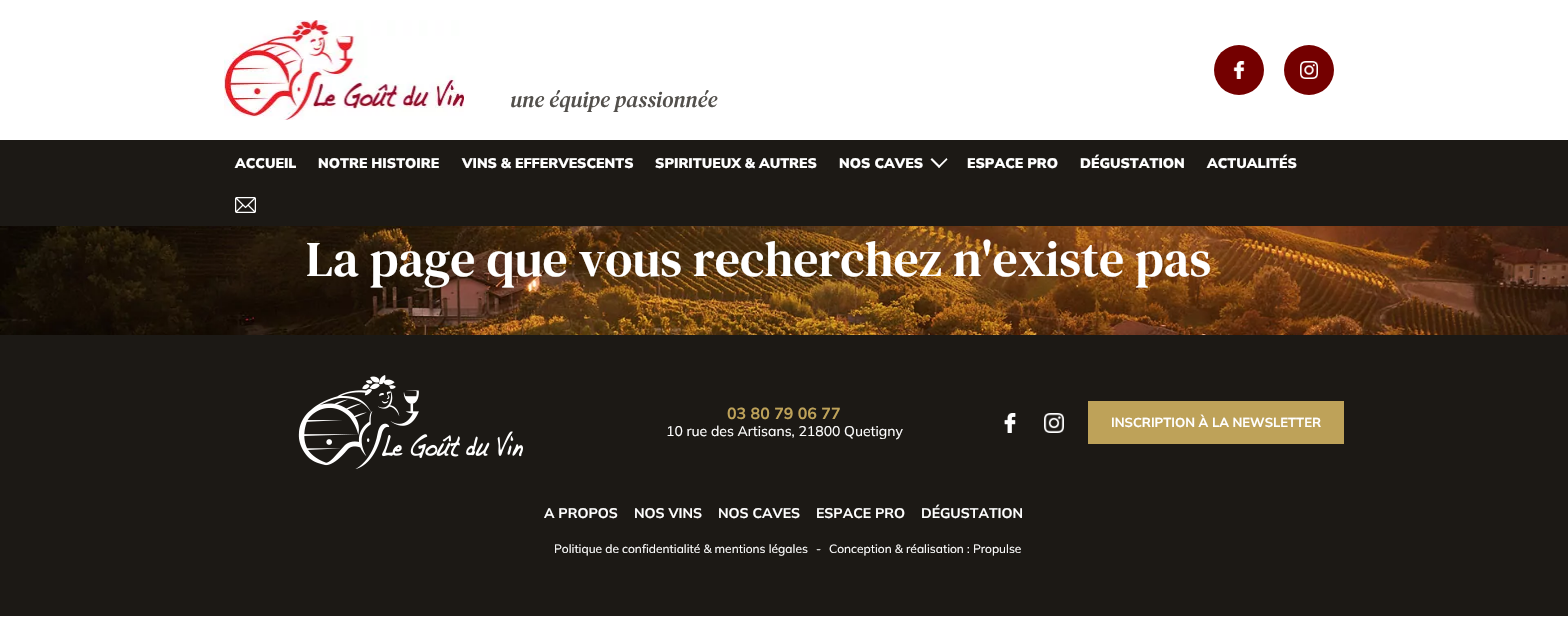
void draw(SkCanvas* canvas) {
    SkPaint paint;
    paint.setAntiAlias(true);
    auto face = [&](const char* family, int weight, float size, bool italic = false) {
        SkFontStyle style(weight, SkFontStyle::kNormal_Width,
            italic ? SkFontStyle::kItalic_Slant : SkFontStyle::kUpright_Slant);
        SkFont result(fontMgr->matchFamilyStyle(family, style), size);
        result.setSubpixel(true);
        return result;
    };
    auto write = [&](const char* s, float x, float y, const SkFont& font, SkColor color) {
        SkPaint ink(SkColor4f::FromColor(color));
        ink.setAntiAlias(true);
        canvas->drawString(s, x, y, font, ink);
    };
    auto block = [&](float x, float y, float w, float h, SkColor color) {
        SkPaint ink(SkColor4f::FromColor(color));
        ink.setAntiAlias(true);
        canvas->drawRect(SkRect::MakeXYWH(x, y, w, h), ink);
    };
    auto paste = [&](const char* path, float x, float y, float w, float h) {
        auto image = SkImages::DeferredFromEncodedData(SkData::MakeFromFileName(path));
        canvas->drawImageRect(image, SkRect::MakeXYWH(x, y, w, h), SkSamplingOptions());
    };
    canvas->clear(SK_ColorWHITE);
    paint.setColor(SkColorSetRGB(116, 0, 0));
    canvas->drawCircle(1239, 70, 25, paint);
    paste("pic1.png", 1233, 61, 12, 18);
    canvas->drawCircle(1309, 70, 25, paint);
    paste("pic2.png", 1300, 61, 18, 18);
    paste("pic3.png", 224, 20, 240, 100);
    auto kFont1 = face("DM Serif Text", 400, 22, true);
    write("une équipe passionnée", 510, 107, kFont1, SkColorSetRGB(83, 80, 76));
    block(0, 140, 1568, 86, SkColorSetRGB(28, 25, 21));
    auto kFont2 = face("Mulish", 900, 14);
    write("ACCUEIL", 235, 168, kFont2, SK_ColorWHITE);
    write("NOTRE HISTOIRE", 318, 168, kFont2, SK_ColorWHITE);
    write("VINS & EFFERVESCENTS", 462, 168, kFont2, SK_ColorWHITE);
    write("SPIRITUEUX & AUTRES", 655, 168, kFont2, SK_ColorWHITE);
    write("NOS CAVES", 839, 168, kFont2, SK_ColorWHITE);
    paint.setColor(SK_ColorWHITE);
    canvas->drawPath(SkPathBuilder().moveTo(938, 166.5f).lineTo(946.5f, 158).lineTo(947.5f, 159.5f).lineTo(939, 168).close().detach(), paint);
    canvas->drawPath(SkPathBuilder().moveTo(930.5f, 159.5f).lineTo(932, 158).lineTo(940.5f, 166.5f).lineTo(939, 168).close().detach(), paint);
    write("ESPACE PRO", 967, 168, kFont2, SK_ColorWHITE);
    write("DÉGUSTATION", 1080, 168, kFont2, SK_ColorWHITE);
    write("ACTUALITÉS", 1207, 168, kFont2, SK_ColorWHITE);
    paste("pic4.png", 235, 197, 21, 16);
    paste("pic5.png", 0, 226, 1568, 109);
    auto kFont3 = face("DM Serif Text", 400, 50);
    write("La page que vous recherchez n'existe pas", 306, 276, kFont3, SK_ColorWHITE);
    block(0, 335, 1568, 281, SkColorSetRGB(28, 25, 21));
    paste("pic6.png", 298, 375, 225, 94);
    auto kFont4 = face("Mulish", 700, 16);
    write("03 80 79 06 77", 727, 419, kFont4, SkColorSetRGB(190, 162, 89));
    auto kFont5 = face("Mulish", 400, 14);
    write("10 rue des Artisans, 21800 Quetigny", 666, 436, kFont5, SK_ColorWHITE);
    paste("pic7.png", 1004, 413, 12, 20);
    paste("pic8.png", 1044, 413, 20, 20);
    block(1088, 401, 256, 43, SkColorSetRGB(190, 162, 89));
    auto kFont6 = face("Mulish", 700, 13);
    write("INSCRIPTION À LA NEWSLETTER", 1111, 427, kFont6, SK_ColorWHITE);
    auto kFont7 = face("Mulish", 700, 14);
    write("A PROPOS", 544, 518, kFont7, SK_ColorWHITE);
    write("NOS VINS", 634, 518, kFont7, SK_ColorWHITE);
    write("NOS CAVES", 718, 518, kFont7, SK_ColorWHITE);
    write("ESPACE PRO", 816, 518, kFont7, SK_ColorWHITE);
    write("DÉGUSTATION", 921, 518, kFont7, SK_ColorWHITE);
    auto kFont8 = face("Mulish", 400, 12);
    write("Politique de confidentialité & mentions légales", 554, 553, kFont8, SK_ColorWHITE);
    write("-", 816, 553, kFont8, SK_ColorWHITE);
    write("Conception & réalisation : Propulse", 829, 553, kFont8, SK_ColorWHITE);
}
